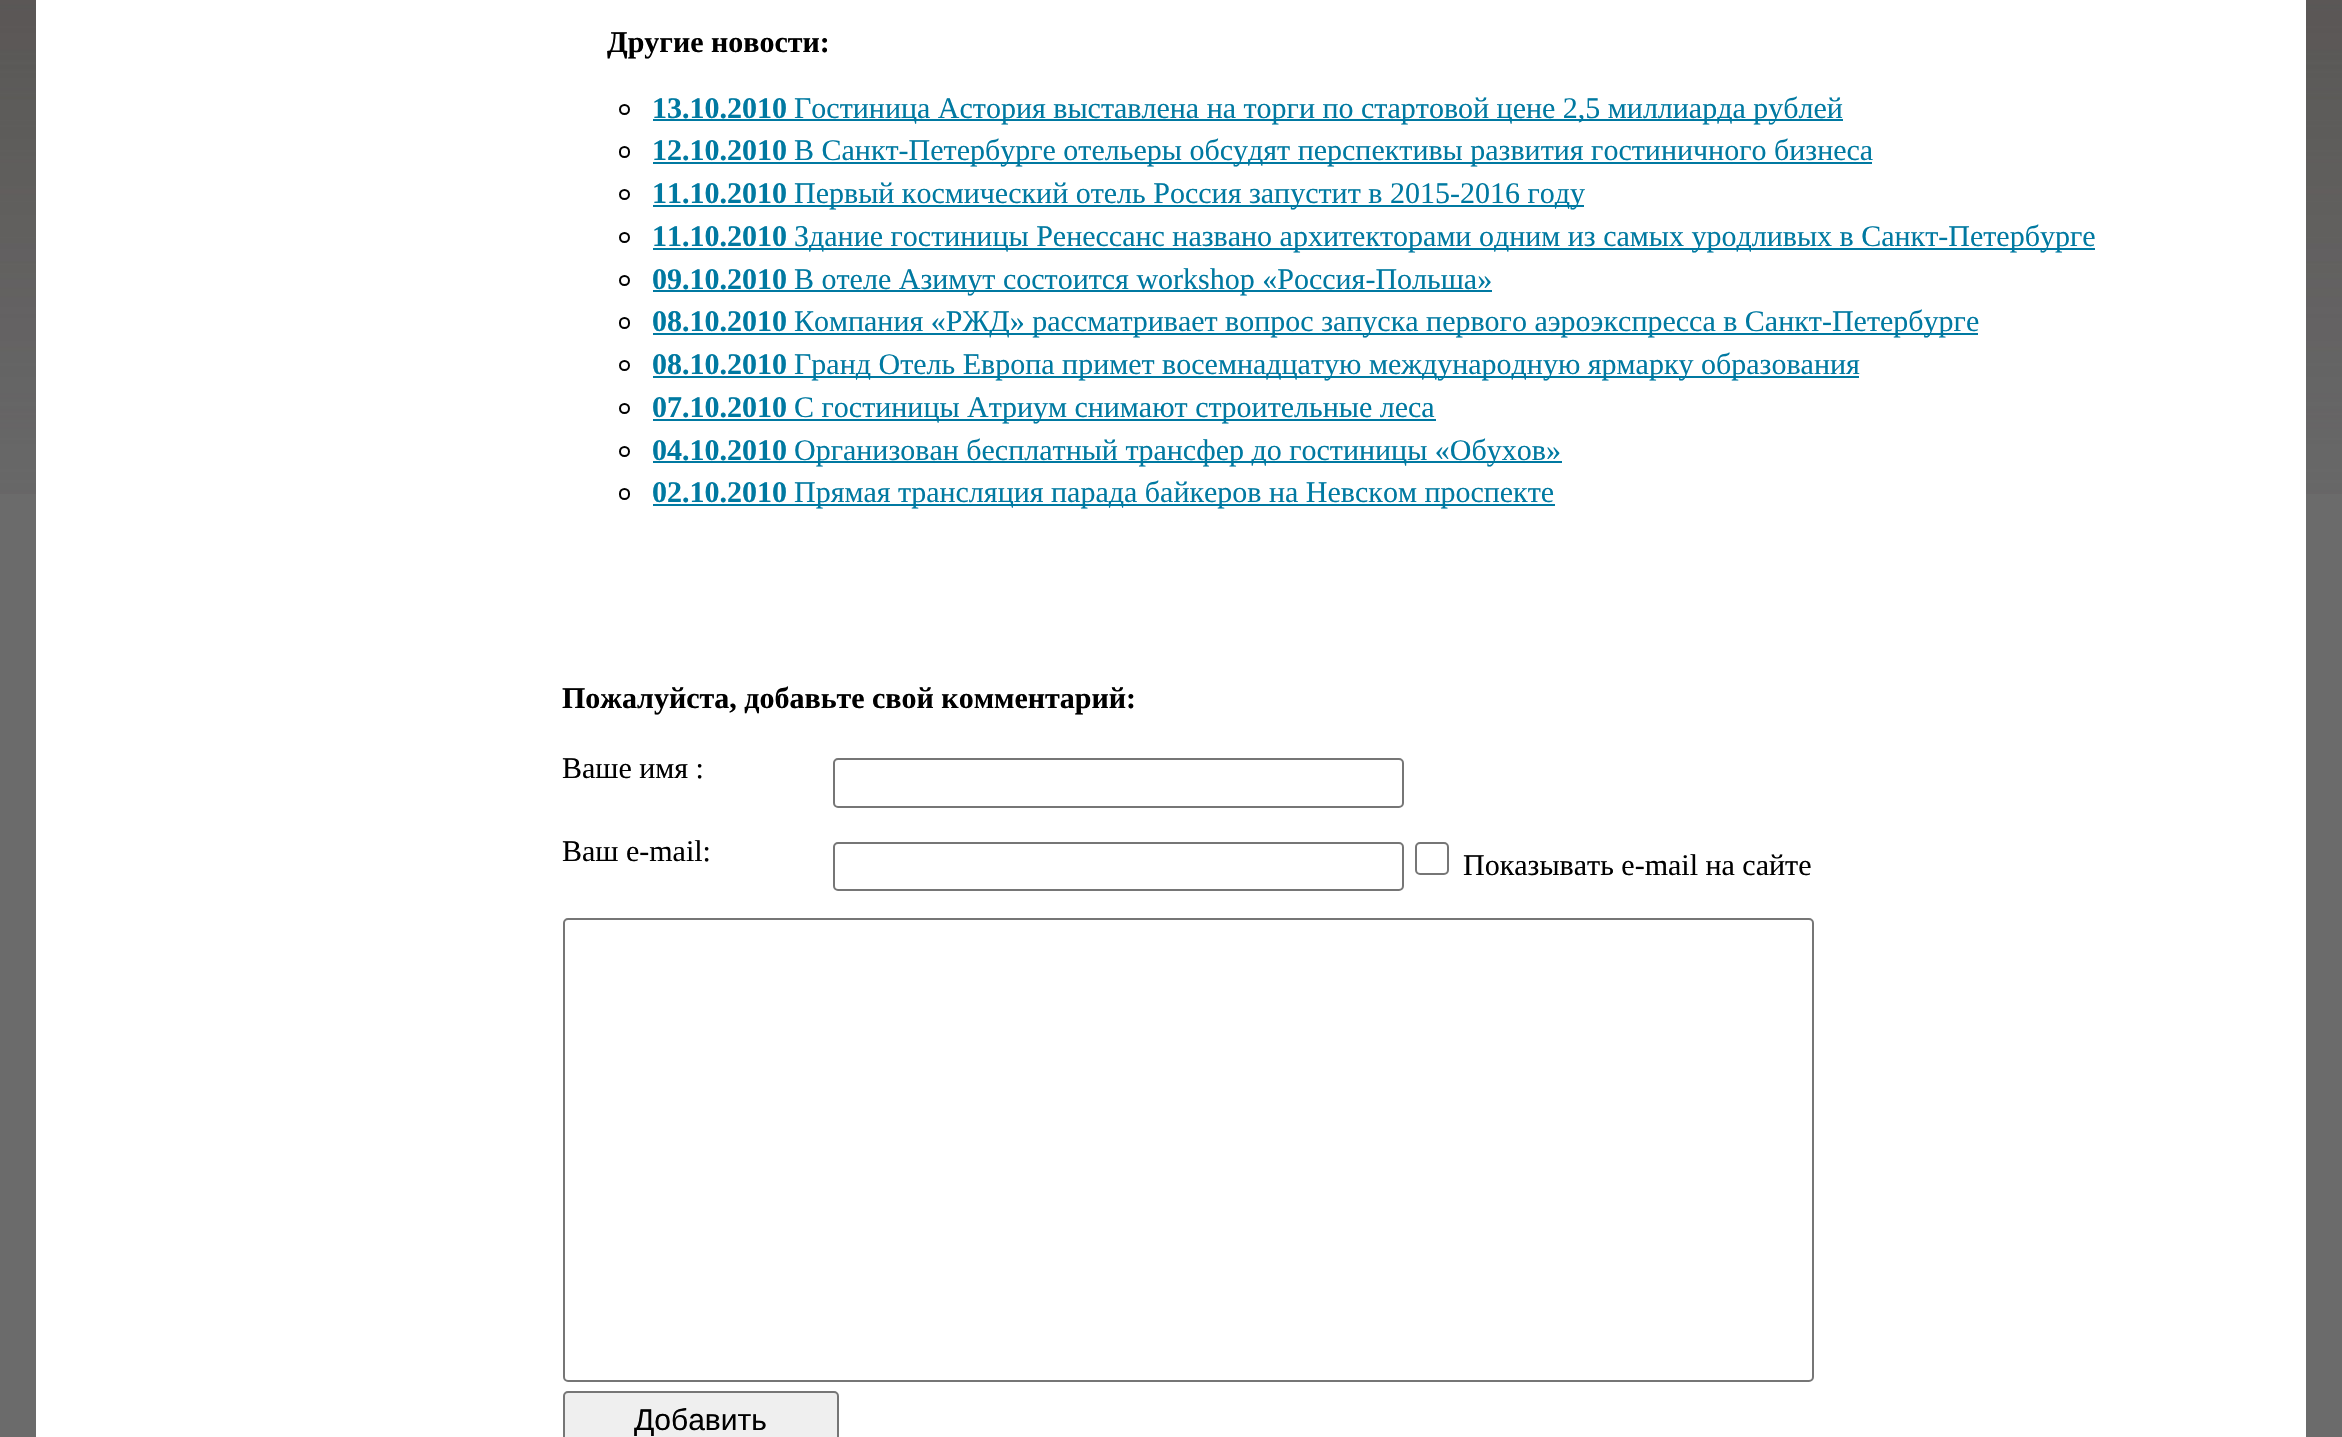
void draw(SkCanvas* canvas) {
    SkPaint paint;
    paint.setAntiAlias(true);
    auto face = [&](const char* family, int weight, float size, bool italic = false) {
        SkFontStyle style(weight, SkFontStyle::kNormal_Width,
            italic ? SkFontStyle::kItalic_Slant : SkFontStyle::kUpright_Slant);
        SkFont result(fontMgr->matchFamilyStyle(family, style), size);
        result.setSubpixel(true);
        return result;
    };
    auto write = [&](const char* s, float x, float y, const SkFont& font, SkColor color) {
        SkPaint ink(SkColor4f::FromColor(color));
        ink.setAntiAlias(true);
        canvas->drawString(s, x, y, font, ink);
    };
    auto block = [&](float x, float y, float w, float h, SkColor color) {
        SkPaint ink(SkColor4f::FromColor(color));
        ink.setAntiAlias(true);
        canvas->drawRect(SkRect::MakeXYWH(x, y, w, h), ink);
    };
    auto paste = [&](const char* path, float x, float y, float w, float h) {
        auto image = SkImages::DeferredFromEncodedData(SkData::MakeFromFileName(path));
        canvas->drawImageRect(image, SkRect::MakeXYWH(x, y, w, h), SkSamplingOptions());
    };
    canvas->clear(SkColorSetRGB(107, 107, 107));
    paste("pic1.png", 0, 0, 2342, 494);
    block(36, 0, 2270, 1437, SK_ColorWHITE);
    auto kFont1 = face("Liberation Serif", 700, 30);
    write("Другие новости:", 607, 52, kFont1, SK_ColorBLACK);
    paint.setStyle(SkPaint::kStroke_Style);
    paint.setStrokeWidth(2);
    paint.setColor(SK_ColorBLACK);
    canvas->drawCircle(624.5f, 109.5f, 4.5f, paint);
    write("13.10.2010", 652, 118, kFont1, SkColorSetRGB(0, 121, 161));
    block(653, 119, 1190, 2, SkColorSetRGB(0, 121, 161));
    auto kFont2 = face("Liberation Serif", 400, 30);
    write("Гостиница Астория выставлена на торги по стартовой цене 2,5 миллиарда рублей", 794, 118, kFont2, SkColorSetRGB(0, 121, 161));
    canvas->drawRoundRect(SkRect::MakeXYWH(620, 147, 9, 10), 4.5f, 4.5f, paint);
    write("12.10.2010", 652, 160, kFont1, SkColorSetRGB(0, 121, 161));
    block(653, 162, 1219, 2, SkColorSetRGB(0, 121, 161));
    write("В Санкт-Петербурге отельеры обсудят перспективы развития гостиничного бизнеса", 794, 160, kFont2, SkColorSetRGB(0, 121, 161));
    canvas->drawCircle(624.5f, 194.5f, 4.5f, paint);
    write("11.10.2010", 652, 203, kFont1, SkColorSetRGB(0, 121, 161));
    block(653, 205, 931, 2, SkColorSetRGB(0, 121, 161));
    write("Первый космический отель Россия запустит в 2015-2016 году", 794, 203, kFont2, SkColorSetRGB(0, 121, 161));
    canvas->drawCircle(624.5f, 237.5f, 4.5f, paint);
    write("11.10.2010", 652, 246, kFont1, SkColorSetRGB(0, 121, 161));
    block(653, 248, 1442, 2, SkColorSetRGB(0, 121, 161));
    write("Здание гостиницы Ренессанс названо архитекторами одним из самых уродливых в Санкт-Петербурге", 794, 246, kFont2, SkColorSetRGB(0, 121, 161));
    canvas->drawCircle(624.5f, 280.5f, 4.5f, paint);
    write("09.10.2010", 652, 289, kFont1, SkColorSetRGB(0, 121, 161));
    block(653, 290, 839, 2, SkColorSetRGB(0, 121, 161));
    write("В отеле Азимут состоится workshop «Россия-Польша»", 794, 289, kFont2, SkColorSetRGB(0, 121, 161));
    canvas->drawRoundRect(SkRect::MakeXYWH(620, 318, 9, 10), 4.5f, 4.5f, paint);
    write("08.10.2010", 652, 331, kFont1, SkColorSetRGB(0, 121, 161));
    block(653, 333, 1325, 2, SkColorSetRGB(0, 121, 161));
    write("Компания «РЖД» рассматривает вопрос запуска первого аэроэкспресса в Санкт-Петербурге", 794, 331, kFont2, SkColorSetRGB(0, 121, 161));
    canvas->drawCircle(624.5f, 365.5f, 4.5f, paint);
    write("08.10.2010", 652, 374, kFont1, SkColorSetRGB(0, 121, 161));
    block(653, 376, 1206, 2, SkColorSetRGB(0, 121, 161));
    write("Гранд Отель Европа примет восемнадцатую международную ярмарку образования", 794, 374, kFont2, SkColorSetRGB(0, 121, 161));
    canvas->drawCircle(624.5f, 408.5f, 4.5f, paint);
    write("07.10.2010", 652, 417, kFont1, SkColorSetRGB(0, 121, 161));
    block(653, 419, 783, 2, SkColorSetRGB(0, 121, 161));
    write("С гостиницы Атриум снимают строительные леса", 794, 417, kFont2, SkColorSetRGB(0, 121, 161));
    canvas->drawCircle(624.5f, 451.5f, 4.5f, paint);
    write("04.10.2010", 652, 460, kFont1, SkColorSetRGB(0, 121, 161));
    block(653, 461, 909, 2, SkColorSetRGB(0, 121, 161));
    write("Организован бесплатный трансфер до гостиницы «Обухов»", 794, 460, kFont2, SkColorSetRGB(0, 121, 161));
    canvas->drawRoundRect(SkRect::MakeXYWH(620, 489, 9, 10), 4.5f, 4.5f, paint);
    write("02.10.2010", 652, 502, kFont1, SkColorSetRGB(0, 121, 161));
    block(653, 504, 902, 2, SkColorSetRGB(0, 121, 161));
    write("Прямая трансляция парада байкеров на Невском проспекте", 794, 502, kFont2, SkColorSetRGB(0, 121, 161));
    write("Пожалуйста, добавьте свой комментарий:", 562, 708, kFont1, SK_ColorBLACK);
    write("Ваше имя :", 562, 778, kFont2, SK_ColorBLACK);
    paint.setColor(SkColorSetRGB(118, 118, 118));
    canvas->drawRoundRect(SkRect::MakeXYWH(834, 759, 569, 48), 4, 4, paint);
    write("Ваш e-mail:", 562, 861, kFont2, SK_ColorBLACK);
    canvas->drawRoundRect(SkRect::MakeXYWH(834, 843, 569, 47), 4, 4, paint);
    canvas->drawRoundRect(SkRect::MakeXYWH(1416, 843, 32, 31), 4, 4, paint);
    write("Показывать e-mail на сайте", 1463, 875, kFont2, SK_ColorBLACK);
    canvas->drawRoundRect(SkRect::MakeXYWH(564, 919, 1249, 462), 4, 4, paint);
    paint.setStyle(SkPaint::kFill_Style);
    paint.setColor(SkColorSetRGB(239, 239, 239));
    canvas->drawRoundRect(SkRect::MakeXYWH(564, 1392, 274, 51), 4, 4, paint);
    paint.setStyle(SkPaint::kStroke_Style);
    paint.setColor(SkColorSetRGB(118, 118, 118));
    canvas->drawRoundRect(SkRect::MakeXYWH(564, 1392, 274, 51), 4, 4, paint);
    auto kFont3 = face("Liberation Sans", 400, 30);
    write("Добавить", 634, 1430, kFont3, SK_ColorBLACK);
}
